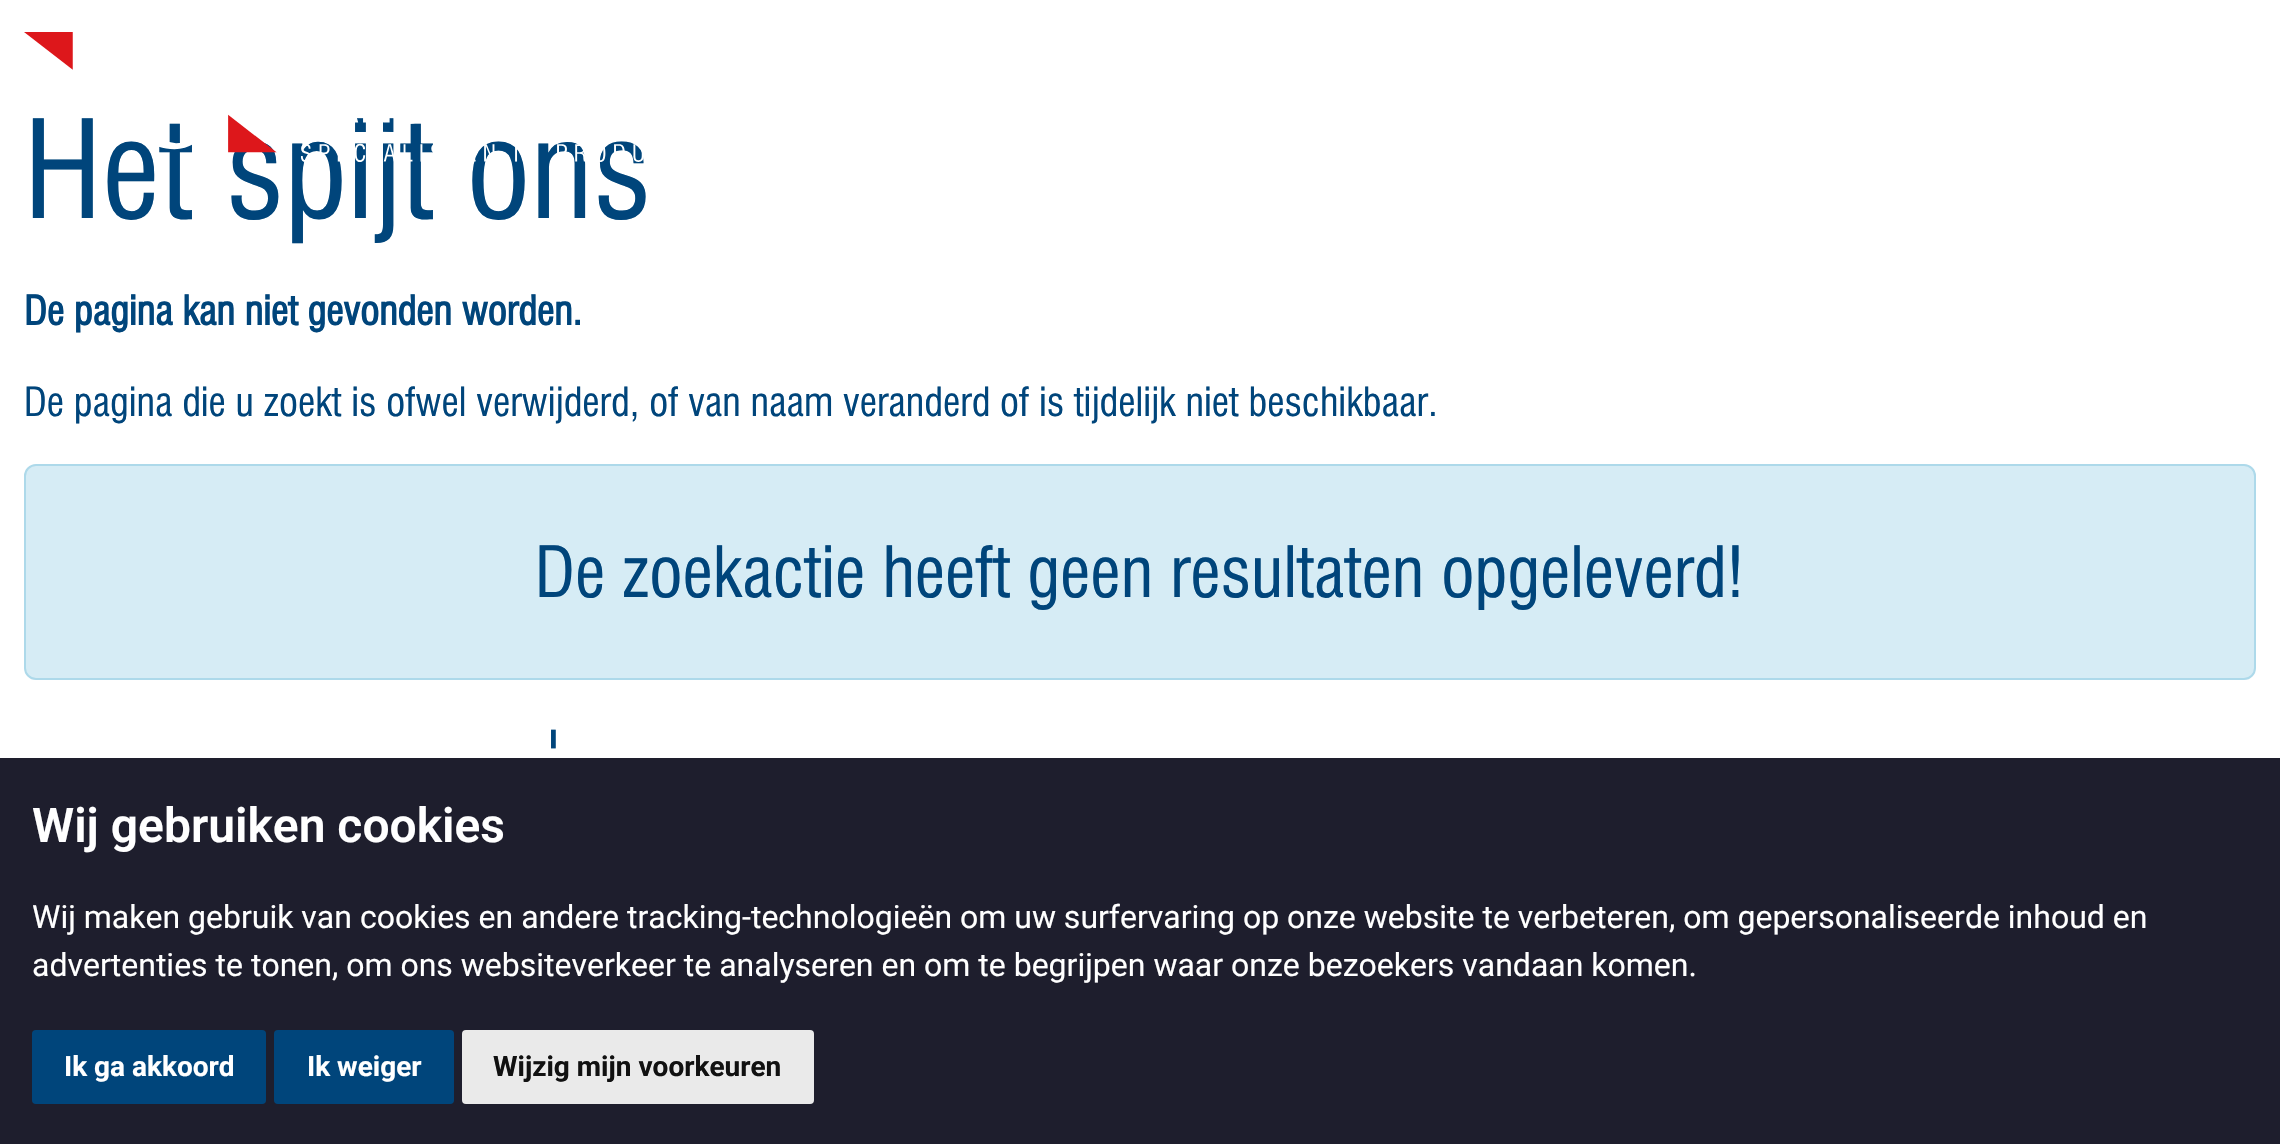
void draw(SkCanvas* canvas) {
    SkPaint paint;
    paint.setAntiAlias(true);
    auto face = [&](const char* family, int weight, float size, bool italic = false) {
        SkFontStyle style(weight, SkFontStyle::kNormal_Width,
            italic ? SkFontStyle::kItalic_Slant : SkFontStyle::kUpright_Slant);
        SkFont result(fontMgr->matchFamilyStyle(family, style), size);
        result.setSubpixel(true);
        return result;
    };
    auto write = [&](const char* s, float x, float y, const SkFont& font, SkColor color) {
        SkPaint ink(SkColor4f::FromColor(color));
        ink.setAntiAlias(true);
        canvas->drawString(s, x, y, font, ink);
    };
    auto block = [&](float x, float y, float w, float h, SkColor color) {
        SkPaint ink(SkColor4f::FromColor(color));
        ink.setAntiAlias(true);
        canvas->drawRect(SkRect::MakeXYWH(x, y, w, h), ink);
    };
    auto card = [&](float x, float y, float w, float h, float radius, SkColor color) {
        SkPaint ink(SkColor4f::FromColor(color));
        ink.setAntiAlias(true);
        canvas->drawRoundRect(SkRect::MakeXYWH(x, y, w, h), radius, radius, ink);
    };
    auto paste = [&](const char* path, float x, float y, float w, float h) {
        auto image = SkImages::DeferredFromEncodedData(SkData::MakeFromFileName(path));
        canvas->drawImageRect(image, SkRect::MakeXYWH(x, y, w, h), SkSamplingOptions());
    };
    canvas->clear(SK_ColorWHITE);
    auto kFont1 = face("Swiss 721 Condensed", 400, 132.5f);
    write("Het spijt ons", 24, 218, kFont1, SkColorSetRGB(0, 69, 123));
    paste("pic1.png", 24, 32, 620, 130);
    auto kFont2 = face("Swiss 721 Condensed", 700, 39.25f);
    write("De pagina kan niet gevonden worden.", 24, 325, kFont2, SkColorSetRGB(0, 69, 123));
    auto kFont3 = face("Swiss 721 Condensed", 400, 39.25f);
    write("De pagina die u zoekt is ofwel verwijderd, of van naam veranderd of is tijdelijk niet beschikbaar.", 24, 416, kFont3, SkColorSetRGB(0, 69, 123));
    paint.setColor(SkColorSetRGB(214, 236, 245));
    canvas->drawRoundRect(SkRect::MakeXYWH(25, 465, 2230, 214), 11, 11, paint);
    paint.setStyle(SkPaint::kStroke_Style);
    paint.setStrokeWidth(2);
    paint.setColor(SkColorSetRGB(173, 217, 234));
    canvas->drawRoundRect(SkRect::MakeXYWH(25, 465, 2230, 214), 11, 11, paint);
    auto kFont4 = face("Swiss 721 Condensed", 400, 68.9f);
    write("De zoekactie heeft geen resultaten opgeleverd!", 535, 597, kFont4, SkColorSetRGB(0, 69, 123));
    write("'", 548, 778, kFont4, SkColorSetRGB(0, 69, 123));
    block(0, 758, 2280, 386, SkColorSetRGB(30, 30, 45));
    auto kFont5 = face("Roboto", 600, 48);
    write("Wij gebruiken cookies", 32, 842, kFont5, SK_ColorWHITE);
    auto kFont6 = face("Roboto", 400, 32);
    write("Wij maken gebruik van cookies en andere tracking-technologieën om uw surfervaring op onze website te verbeteren, om gepersonaliseerde inhoud en", 32, 928, kFont6, SK_ColorWHITE);
    write("advertenties te tonen, om ons websiteverkeer te analyseren en om te begrijpen waar onze bezoekers vandaan komen.", 32, 976, kFont6, SK_ColorWHITE);
    card(32, 1030, 234, 74, 4, SkColorSetRGB(0, 69, 123));
    auto kFont7 = face("Roboto", 700, 28);
    write("Ik ga akkoord", 64, 1076, kFont7, SK_ColorWHITE);
    card(274, 1030, 180, 74, 4, SkColorSetRGB(0, 69, 123));
    write("Ik weiger", 307, 1076, kFont7, SK_ColorWHITE);
    card(462, 1030, 352, 74, 4, SkColorSetRGB(234, 234, 234));
    write("Wijzig mijn voorkeuren", 493, 1076, kFont7, SkColorSetRGB(17, 17, 17));
}
